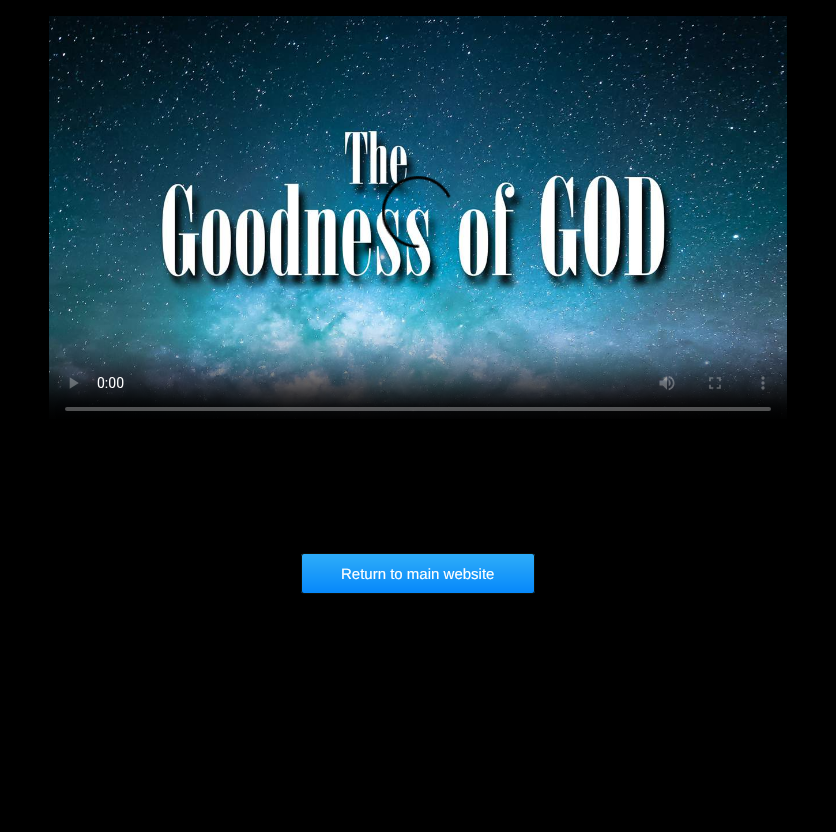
void draw(SkCanvas* canvas) {
    SkPaint paint;
    paint.setAntiAlias(true);
    auto face = [&](const char* family, int weight, float size, bool italic = false) {
        SkFontStyle style(weight, SkFontStyle::kNormal_Width,
            italic ? SkFontStyle::kItalic_Slant : SkFontStyle::kUpright_Slant);
        SkFont result(fontMgr->matchFamilyStyle(family, style), size);
        result.setSubpixel(true);
        return result;
    };
    auto write = [&](const char* s, float x, float y, const SkFont& font, SkColor color) {
        SkPaint ink(SkColor4f::FromColor(color));
        ink.setAntiAlias(true);
        canvas->drawString(s, x, y, font, ink);
    };
    auto paste = [&](const char* path, float x, float y, float w, float h) {
        auto image = SkImages::DeferredFromEncodedData(SkData::MakeFromFileName(path));
        canvas->drawImageRect(image, SkRect::MakeXYWH(x, y, w, h), SkSamplingOptions());
    };
    canvas->clear(SK_ColorBLACK);
    paste("pic1.png", 49, 16, 738, 403);
    canvas->save();
    canvas->clipPath(SkPathBuilder().moveTo(304, 553).lineTo(532, 553).cubicTo(533.5f, 553, 535, 554.5f, 535, 556).lineTo(535, 591).cubicTo(535, 592.5f, 533.5f, 594, 532, 594).lineTo(304, 594).cubicTo(302.5f, 594, 301, 592.5f, 301, 591).lineTo(301, 556).cubicTo(301, 554.5f, 302.5f, 553, 304, 553).close().detach(), true);
    {
        const SkColor colors[] = {SkColorSetRGB(45, 171, 249), SkColorSetRGB(6, 136, 250)};
        const float stops[] = {0.05f, 1};
        const SkPoint ends[] = {{418, 554}, {418, 593}};
        paint.setShader(SkGradientShader::MakeLinear(ends, colors, stops, 2, SkTileMode::kClamp));
        paint.setAlpha(255);
    }
    canvas->drawRect(SkRect::MakeXYWH(301, 554, 234, 39), paint);
    canvas->restore();
    paint.setStyle(SkPaint::kStroke_Style);
    paint.setStrokeWidth(1);
    paint.setShader(nullptr);
    paint.setColor(SkColorSetRGB(11, 14, 7));
    canvas->drawRoundRect(SkRect::MakeXYWH(301.5f, 553.5f, 233, 40), 2.5f, 2.5f, paint);
    auto kFont1 = face("Liberation Sans", 400, 15);
    write("Return to main website", 341, 579, kFont1, SK_ColorWHITE);
}
